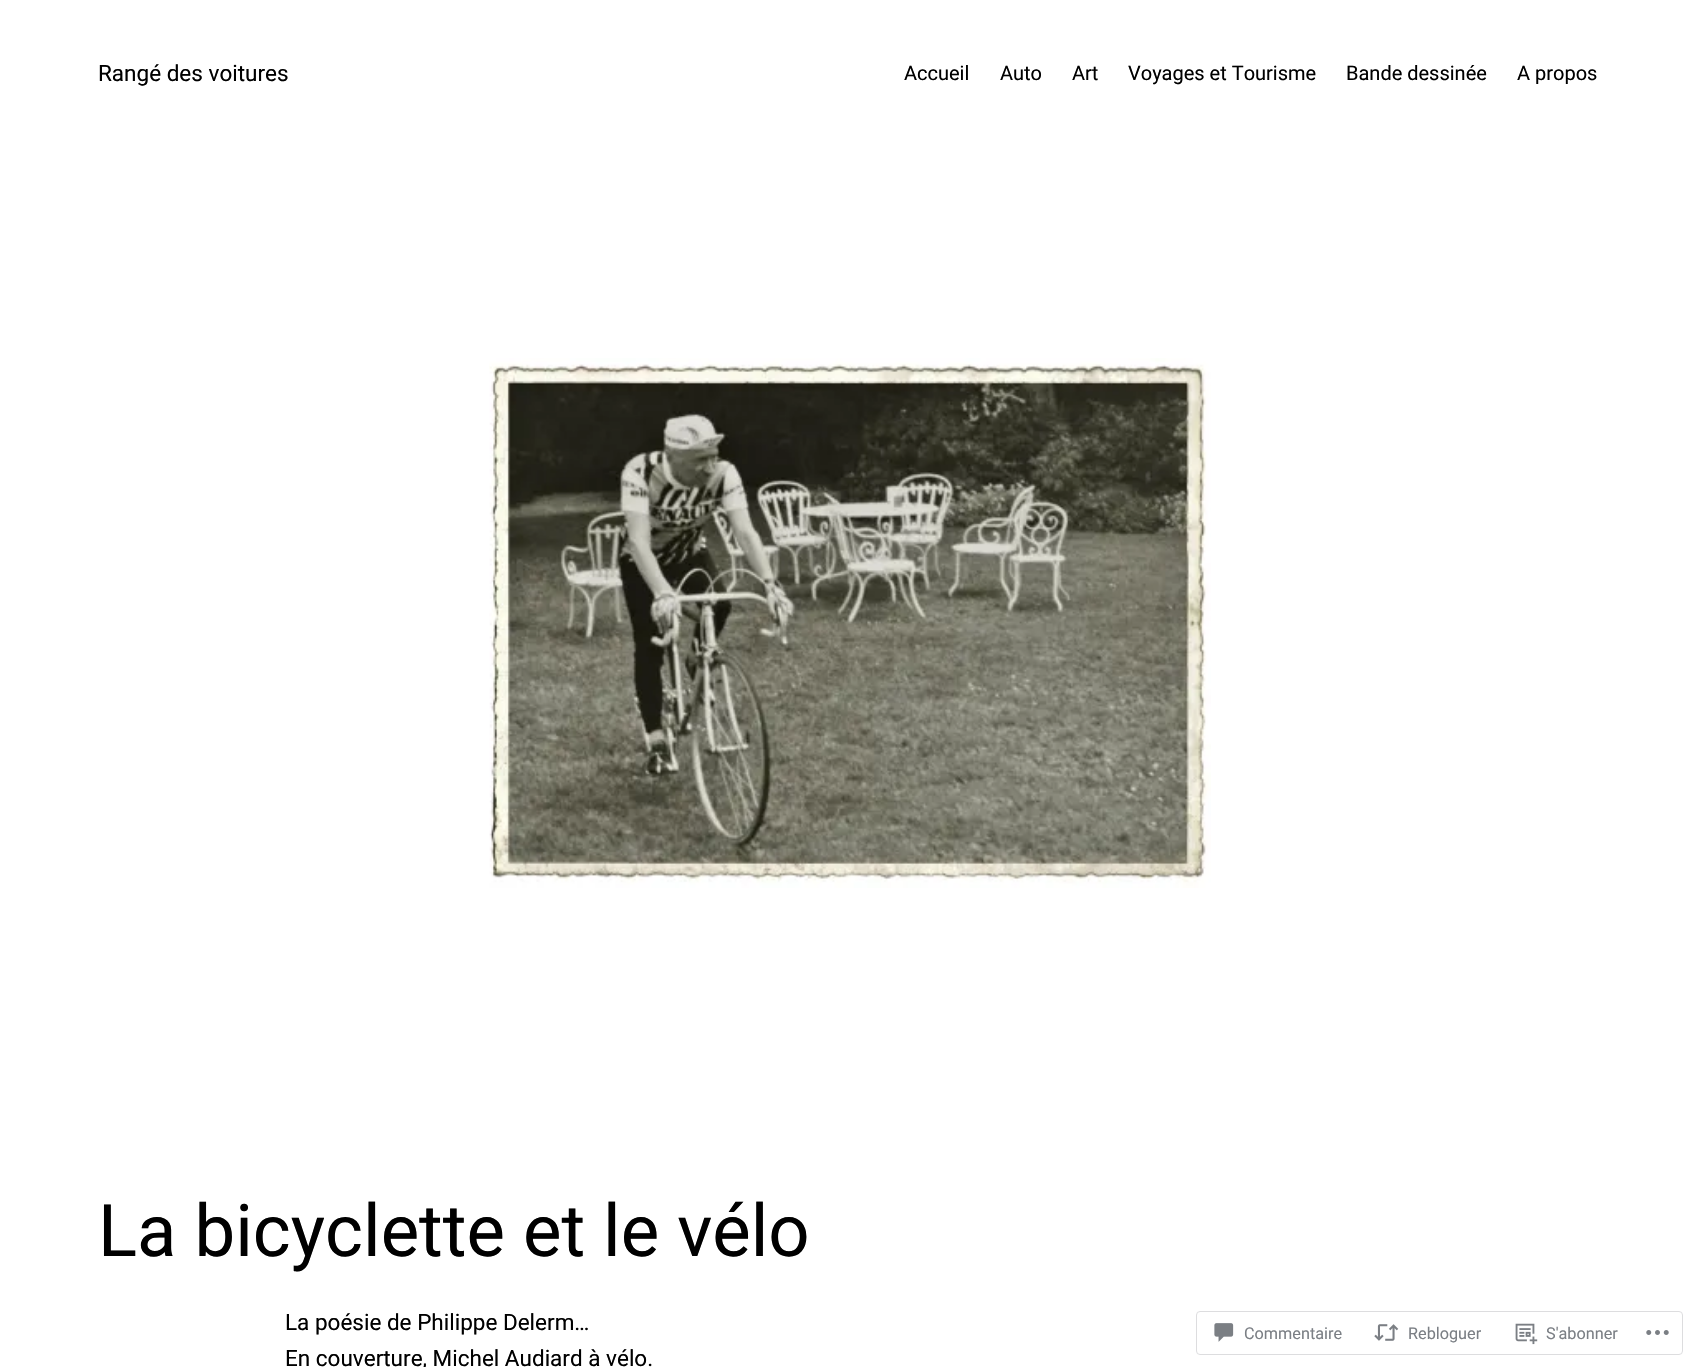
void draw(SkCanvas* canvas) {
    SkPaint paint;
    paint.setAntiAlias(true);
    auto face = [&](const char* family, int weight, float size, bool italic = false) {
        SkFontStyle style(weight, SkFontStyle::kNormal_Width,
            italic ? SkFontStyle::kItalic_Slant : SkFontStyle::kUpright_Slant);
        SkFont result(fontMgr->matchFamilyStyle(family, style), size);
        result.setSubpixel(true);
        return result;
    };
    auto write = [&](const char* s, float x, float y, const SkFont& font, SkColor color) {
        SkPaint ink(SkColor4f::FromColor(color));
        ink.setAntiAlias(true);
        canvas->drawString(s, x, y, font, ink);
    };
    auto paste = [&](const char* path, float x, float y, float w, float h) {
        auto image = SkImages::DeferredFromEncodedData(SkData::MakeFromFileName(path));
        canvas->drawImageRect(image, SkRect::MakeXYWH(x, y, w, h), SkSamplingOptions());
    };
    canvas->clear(SK_ColorWHITE);
    auto kFont1 = face("Roboto", 400, 22.5f);
    write("Rangé des voitures", 98, 81, kFont1, SK_ColorBLACK);
    auto kFont2 = face("Roboto", 400, 20);
    write("Accueil", 904, 80, kFont2, SK_ColorBLACK);
    write("Auto", 1000, 80, kFont2, SK_ColorBLACK);
    write("Art", 1072, 80, kFont2, SK_ColorBLACK);
    write("Voyages et Tourisme", 1128, 80, kFont2, SK_ColorBLACK);
    write("Bande dessinée", 1346, 80, kFont2, SK_ColorBLACK);
    write("A propos", 1517, 80, kFont2, SK_ColorBLACK);
    paste("pic1.png", 489, 358, 722, 530);
    auto kFont3 = face("Roboto", 400, 72.5f);
    write("La bicyclette et le vélo", 98, 1256, kFont3, SK_ColorBLACK);
    write("La poésie de Philippe Delerm…", 285, 1330, kFont1, SK_ColorBLACK);
    write("En couverture, Michel Audiard à vélo.", 285, 1366, kFont1, SK_ColorBLACK);
    paint.setStyle(SkPaint::kStroke_Style);
    paint.setStrokeWidth(1);
    paint.setColor(SkColorSetRGB(221, 221, 223));
    canvas->drawRoundRect(SkRect::MakeXYWH(1196.5f, 1311.5f, 486, 43), 3.5f, 3.5f, paint);
    paste("pic2.png", 1214, 1323, 20, 19);
    auto kFont4 = face("Roboto", 400, 16.25f);
    write("Commentaire", 1244, 1339, kFont4, SkColorSetRGB(123, 127, 133));
    paste("pic3.png", 1374, 1324, 25, 17);
    write("Rebloguer", 1408, 1339, kFont4, SkColorSetRGB(123, 127, 133));
    paste("pic4.png", 1515, 1323, 23, 22);
    write("S'abonner", 1546, 1339, kFont4, SkColorSetRGB(123, 127, 133));
    paste("pic5.png", 1646, 1330, 23, 5);
}
